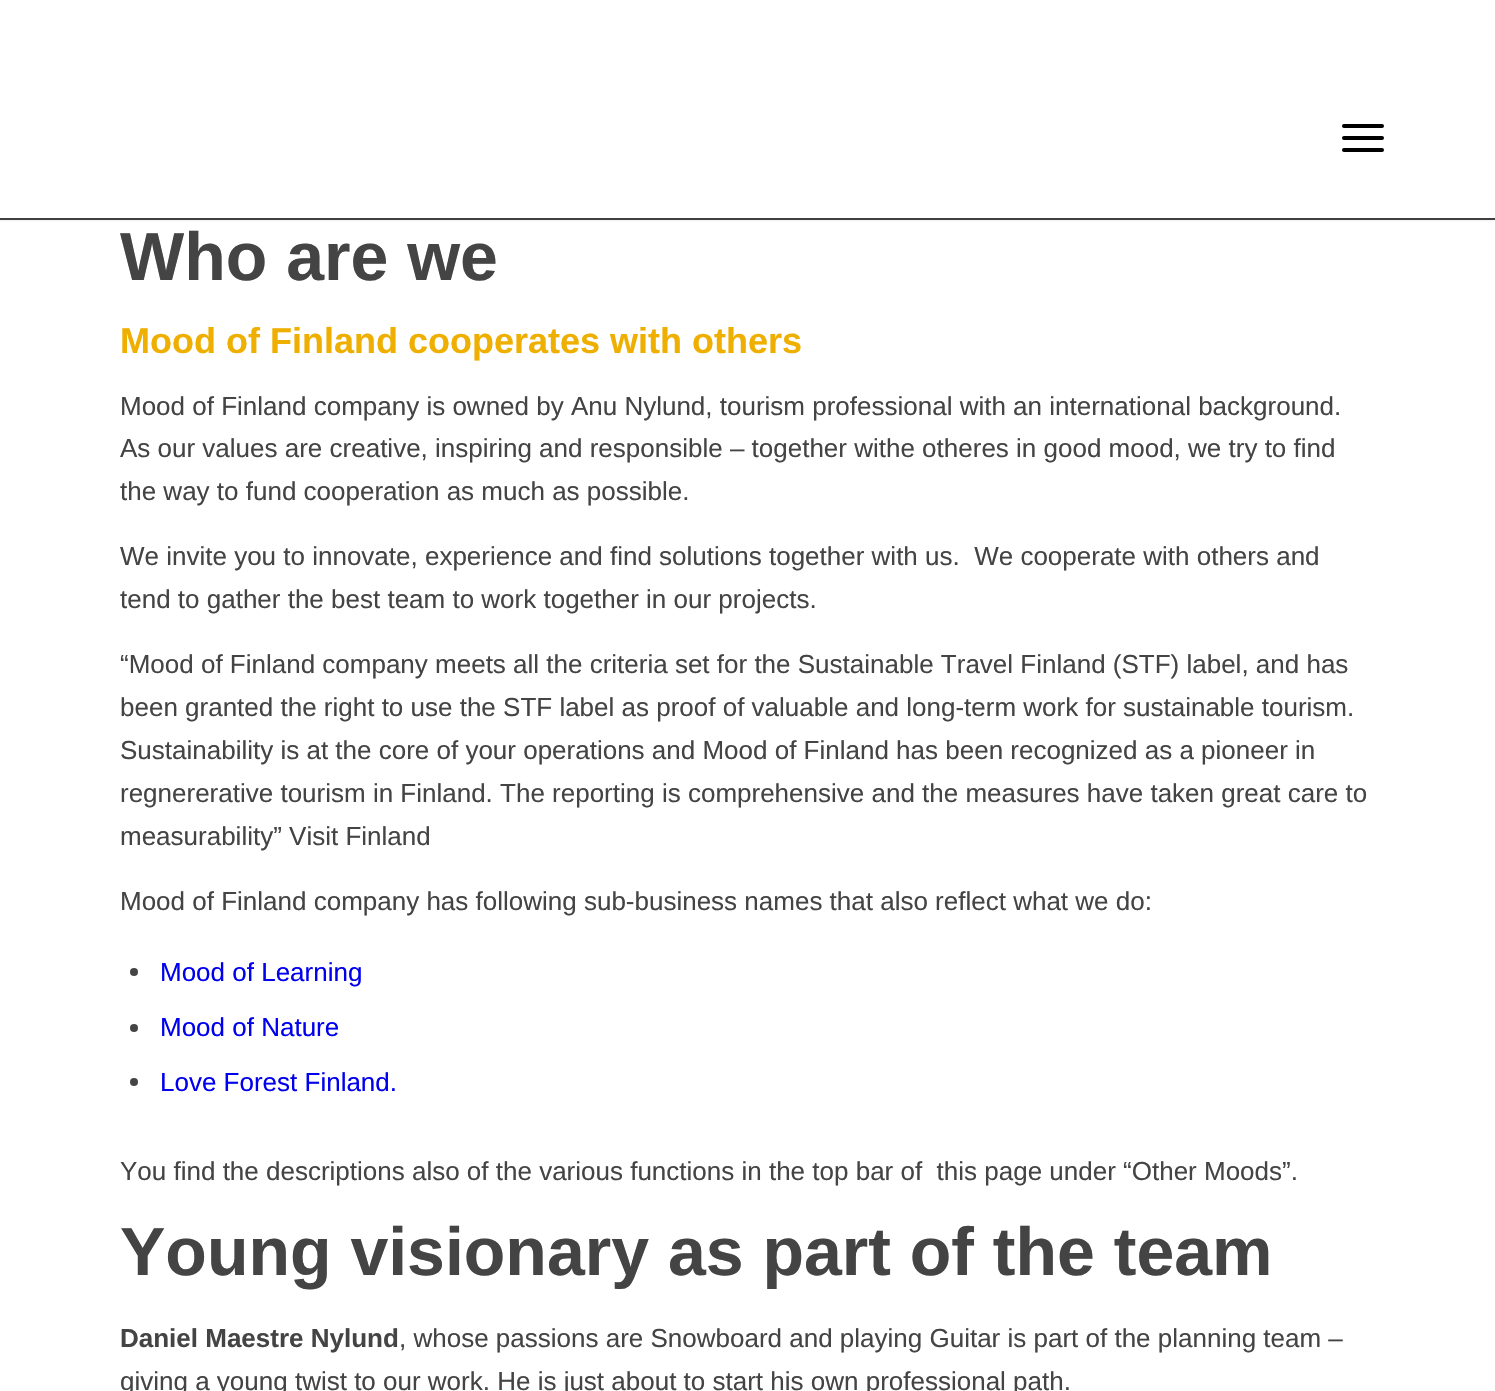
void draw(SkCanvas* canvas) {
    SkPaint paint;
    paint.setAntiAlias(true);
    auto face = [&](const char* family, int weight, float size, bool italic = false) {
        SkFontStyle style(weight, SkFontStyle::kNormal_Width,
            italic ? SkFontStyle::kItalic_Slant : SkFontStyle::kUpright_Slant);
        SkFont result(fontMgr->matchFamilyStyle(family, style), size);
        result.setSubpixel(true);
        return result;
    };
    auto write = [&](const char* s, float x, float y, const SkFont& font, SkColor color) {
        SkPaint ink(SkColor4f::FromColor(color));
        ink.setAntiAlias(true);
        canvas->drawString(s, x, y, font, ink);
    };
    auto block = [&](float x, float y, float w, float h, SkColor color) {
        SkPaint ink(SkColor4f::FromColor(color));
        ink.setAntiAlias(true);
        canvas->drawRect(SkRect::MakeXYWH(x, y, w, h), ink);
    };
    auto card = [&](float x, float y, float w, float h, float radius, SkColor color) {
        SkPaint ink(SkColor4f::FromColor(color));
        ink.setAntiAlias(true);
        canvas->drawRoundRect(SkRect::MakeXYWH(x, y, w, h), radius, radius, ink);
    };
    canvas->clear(SK_ColorWHITE);
    block(0, 218, 1495, 2, SkColorSetRGB(68, 68, 68));
    canvas->save();
    canvas->clipRect(SkRect::MakeXYWH(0, 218, 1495, 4));
    paint.setColor(SkColorSetARGB(26, 0, 0, 0));
    paint.setMaskFilter(SkMaskFilter::MakeBlur(kNormal_SkBlurStyle, 2));
    canvas->drawRect(SkRect::MakeXYWH(-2, -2, 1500, 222), paint);
    paint.setMaskFilter(nullptr);
    canvas->restore();
    card(1342, 136, 42, 4, 2, SK_ColorBLACK);
    card(1342, 124, 42, 4, 2, SK_ColorBLACK);
    card(1342, 148, 42, 4, 2, SK_ColorBLACK);
    auto kFont1 = face("Liberation Sans", 700, 68);
    write("Who are we", 120, 280, kFont1, SkColorSetRGB(68, 68, 68));
    auto kFont2 = face("Liberation Sans", 700, 36);
    write("Mood of Finland cooperates with others", 120, 353, kFont2, SkColorSetRGB(238, 175, 0));
    auto kFont3 = face("Liberation Sans", 400, 26);
    write("Mood of Finland company is owned by Anu Nylund, tourism professional with an international background.", 120, 415, kFont3, SkColorSetRGB(68, 68, 68));
    write("As our values are creative, inspiring and responsible – together withe otheres in good mood, we try to find", 120, 457, kFont3, SkColorSetRGB(68, 68, 68));
    write("the way to fund cooperation as much as possible.", 120, 500, kFont3, SkColorSetRGB(68, 68, 68));
    write("We invite you to innovate, experience and find solutions together with us.  We cooperate with others and", 120, 565, kFont3, SkColorSetRGB(68, 68, 68));
    write("tend to gather the best team to work together in our projects.", 120, 608, kFont3, SkColorSetRGB(68, 68, 68));
    write("“Mood of Finland company meets all the criteria set for the Sustainable Travel Finland (STF) label, and has", 120, 673, kFont3, SkColorSetRGB(68, 68, 68));
    write("been granted the right to use the STF label as proof of valuable and long-term work for sustainable tourism.", 120, 716, kFont3, SkColorSetRGB(68, 68, 68));
    write("Sustainability is at the core of your operations and Mood of Finland has been recognized as a pioneer in", 120, 759, kFont3, SkColorSetRGB(68, 68, 68));
    write("regnererative tourism in Finland. The reporting is comprehensive and the measures have taken great care to", 120, 802, kFont3, SkColorSetRGB(68, 68, 68));
    write("measurability” Visit Finland", 120, 845, kFont3, SkColorSetRGB(68, 68, 68));
    write("Mood of Finland company has following sub-business names that also reflect what we do:", 120, 910, kFont3, SkColorSetRGB(68, 68, 68));
    paint.setColor(SkColorSetRGB(68, 68, 68));
    canvas->drawCircle(134, 972, 4, paint);
    write("Mood of Learning", 160, 981, kFont3, SkColorSetRGB(0, 0, 238));
    canvas->drawCircle(134, 1028, 4, paint);
    write("Mood of Nature", 160, 1036, kFont3, SkColorSetRGB(0, 0, 238));
    canvas->drawCircle(134, 1082, 4, paint);
    write("Love Forest Finland.", 160, 1091, kFont3, SkColorSetRGB(0, 0, 238));
    write("You find the descriptions also of the various functions in the top bar of  this page under “Other Moods”.", 120, 1180, kFont3, SkColorSetRGB(68, 68, 68));
    write("Young visionary as part of the team", 120, 1275, kFont1, SkColorSetRGB(68, 68, 68));
    auto kFont4 = face("Liberation Sans", 700, 26);
    write("Daniel Maestre Nylund", 120, 1347, kFont4, SkColorSetRGB(68, 68, 68));
    write(", whose passions are Snowboard and playing Guitar is part of the planning team –", 399, 1347, kFont3, SkColorSetRGB(68, 68, 68));
    write("giving a young twist to our work. He is just about to start his own professional path.", 120, 1390, kFont3, SkColorSetRGB(68, 68, 68));
}
